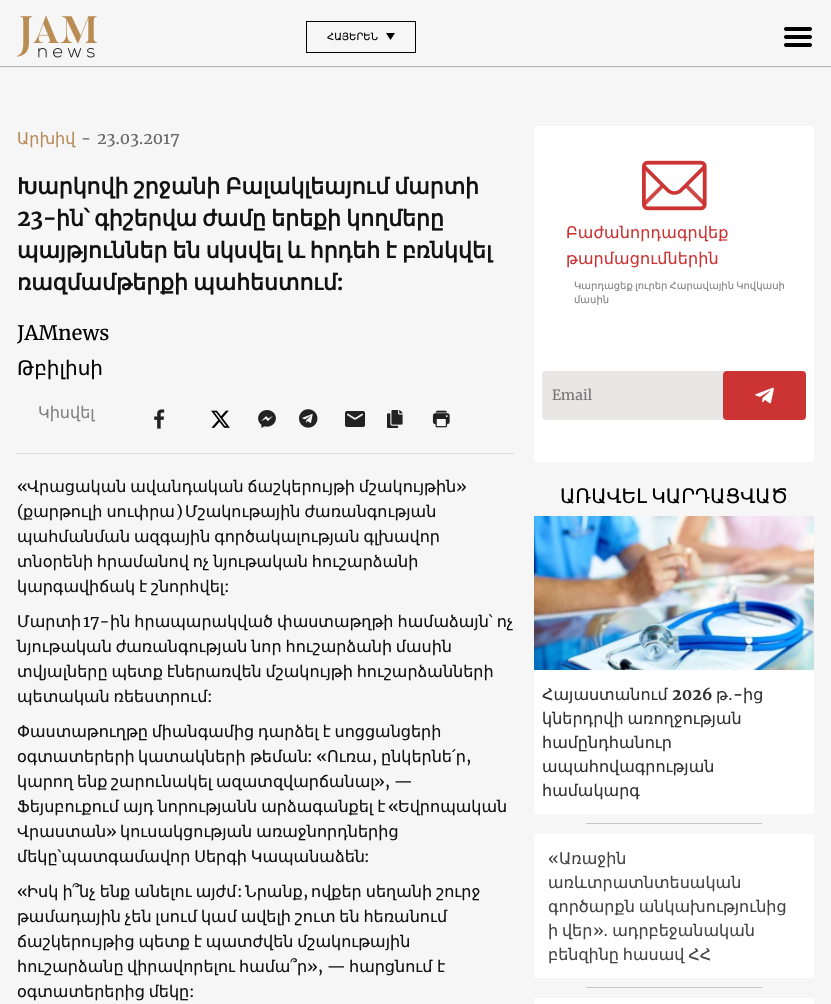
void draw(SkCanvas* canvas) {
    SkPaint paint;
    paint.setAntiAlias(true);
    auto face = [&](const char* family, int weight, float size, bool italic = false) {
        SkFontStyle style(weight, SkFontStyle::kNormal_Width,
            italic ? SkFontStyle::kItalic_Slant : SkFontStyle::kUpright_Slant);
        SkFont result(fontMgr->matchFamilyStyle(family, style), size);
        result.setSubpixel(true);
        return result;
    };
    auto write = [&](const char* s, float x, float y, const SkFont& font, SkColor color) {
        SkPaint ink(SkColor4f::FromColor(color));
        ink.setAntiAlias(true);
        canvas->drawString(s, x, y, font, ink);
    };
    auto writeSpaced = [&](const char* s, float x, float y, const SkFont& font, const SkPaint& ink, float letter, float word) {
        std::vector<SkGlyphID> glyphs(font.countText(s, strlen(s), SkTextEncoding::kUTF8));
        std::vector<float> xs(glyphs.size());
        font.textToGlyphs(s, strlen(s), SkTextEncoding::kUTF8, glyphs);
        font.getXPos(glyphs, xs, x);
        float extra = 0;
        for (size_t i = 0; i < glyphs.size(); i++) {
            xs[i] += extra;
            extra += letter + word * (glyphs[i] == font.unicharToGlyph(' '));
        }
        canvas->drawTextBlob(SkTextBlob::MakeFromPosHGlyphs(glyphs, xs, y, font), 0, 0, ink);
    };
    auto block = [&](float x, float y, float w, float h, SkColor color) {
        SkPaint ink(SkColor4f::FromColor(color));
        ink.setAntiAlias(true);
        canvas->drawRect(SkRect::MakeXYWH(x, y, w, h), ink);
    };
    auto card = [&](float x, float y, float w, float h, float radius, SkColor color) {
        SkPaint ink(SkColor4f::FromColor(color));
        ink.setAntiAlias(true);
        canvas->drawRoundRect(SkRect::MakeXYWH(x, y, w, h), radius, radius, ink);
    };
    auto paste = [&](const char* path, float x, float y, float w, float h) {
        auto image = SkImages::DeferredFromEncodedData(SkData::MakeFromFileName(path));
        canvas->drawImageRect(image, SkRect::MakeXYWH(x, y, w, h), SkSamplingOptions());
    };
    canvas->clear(SkColorSetRGB(246, 246, 246));
    canvas->save();
    canvas->clipRect(SkRect::MakeXYWH(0, 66, 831, 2));
    paint.setColor(SkColorSetARGB(64, 0, 0, 0));
    paint.setMaskFilter(SkMaskFilter::MakeBlur(kNormal_SkBlurStyle, 0.5f));
    canvas->drawRect(SkRect::MakeXYWH(0, 1, 831, 66), paint);
    paint.setMaskFilter(nullptr);
    canvas->restore();
    paste("pic1.png", 17, 16, 80, 42);
    paint.setStyle(SkPaint::kStroke_Style);
    paint.setStrokeWidth(1);
    paint.setColor(SK_ColorBLACK);
    canvas->drawRect(SkRect::MakeXYWH(306.5f, 21.5f, 109, 31), paint);
    auto kFont1 = face("DejaVu Sans", 400, 10);
    write("ՀԱՅԵՐԵՆ", 327, 40, kFont1, SK_ColorBLACK);
    paint.setStyle(SkPaint::kFill_Style);
    canvas->drawPath(SkPathBuilder().moveTo(395, 33).lineTo(390.5f, 40).lineTo(386, 33).close().detach(), paint);
    paste("pic2.png", 784, 27, 28, 20);
    auto kFont2 = face("DejaVu Sans", 400, 16);
    write("Արխիվ", 17, 144, kFont2, SkColorSetRGB(184, 138, 88));
    auto kFont3 = face("Merriweather", 400, 16);
    write("-", 81, 144, kFont3, SkColorSetRGB(102, 102, 102));
    write("23.03.2017", 97, 144, kFont3, SkColorSetRGB(102, 102, 102));
    auto kFont4 = face("DejaVu Sans", 700, 22);
    paint.setColor(SkColorSetRGB(18, 18, 18));
    writeSpaced("Խարկովի շրջանի Բալակլեայում մարտի", 17, 194, kFont4, paint, 0, -1.75f);
    auto kFont5 = face("Merriweather", 700, 22);
    write("23-", 17, 226, kFont5, SkColorSetRGB(18, 18, 18));
    writeSpaced("ին՝ գիշերվա ժամը երեքի կողմերը", 56, 226, kFont4, paint, 0, -1.75f);
    writeSpaced("պայթյուններ են սկսվել և հրդեհ է բռնկվել", 17, 258, kFont4, paint, 0, -1.75f);
    writeSpaced("ռազմամթերքի պահեստում", 17, 290, kFont4, paint, 0, -1.75f);
    write(":", 336, 290, kFont5, SkColorSetRGB(18, 18, 18));
    auto kFont6 = face("Merriweather", 400, 20);
    write("JAMnews", 17, 340, kFont6, SK_ColorBLACK);
    auto kFont7 = face("DejaVu Sans", 400, 20);
    write("Թբիլիսի", 17, 375, kFont7, SK_ColorBLACK);
    block(17, 453, 497, 1, SkColorSetRGB(220, 220, 220));
    write("Կիսվել", 38, 418, kFont2, SkColorSetRGB(130, 130, 130));
    paste("pic3.png", 154, 409, 11, 20);
    paste("pic4.png", 211, 410, 19, 18);
    paste("pic5.png", 258, 410, 18, 18);
    paste("pic6.png", 299, 409, 19, 19);
    paste("pic7.png", 345, 411, 20, 16);
    paste("pic8.png", 387, 410, 16, 18);
    paste("pic9.png", 432, 410, 18, 18);
    write("«", 17, 492, kFont3, SkColorSetRGB(18, 18, 18));
    writeSpaced("Վրացական ավանդական ճաշկերույթի մշակույթին", 27, 492, kFont2, paint, 0, -1.25f);
    write("»", 456, 492, kFont3, SkColorSetRGB(18, 18, 18));
    write("(", 17, 517, kFont3, SkColorSetRGB(18, 18, 18));
    writeSpaced("քարթուլի սուփրա", 23, 517, kFont2, paint, 0, -1);
    write(")", 176, 517, kFont3, SkColorSetRGB(18, 18, 18));
    writeSpaced("Մշակութային ժառանգության", 185, 517, kFont2, paint, 0, -1);
    writeSpaced("պահմանման ազգային գործակալության գլխավոր", 17, 542, kFont2, paint, 0, -1.25f);
    writeSpaced("տնօրենի հրամանով ոչ նյութական հուշարձանի", 17, 567, kFont2, paint, 0, -1.25f);
    writeSpaced("կարգավիճակ է շնորհվել", 17, 592, kFont2, paint, 0, -1.25f);
    write(":", 224, 592, kFont3, SkColorSetRGB(18, 18, 18));
    write("Մարտի", 17, 627, kFont2, SkColorSetRGB(18, 18, 18));
    write("17-", 83, 627, kFont3, SkColorSetRGB(18, 18, 18));
    writeSpaced("ին հրապարակված փաստաթղթի համաձայն՝ ոչ", 110, 627, kFont2, paint, 0, -1);
    writeSpaced("նյութական ժառանգության նոր հուշարձանի մասին", 17, 652, kFont2, paint, 0, -1.25f);
    writeSpaced("տվյալները պետք էներառվեն մշակույթի հուշարձանների", 17, 677, kFont2, paint, 0, -1.25f);
    writeSpaced("պետական ռեեստրում", 17, 702, kFont2, paint, 0, -1.25f);
    write(":", 207, 702, kFont3, SkColorSetRGB(18, 18, 18));
    writeSpaced("Փաստաթուղթը միանգամից դարձել է սոցցանցերի", 17, 737, kFont2, paint, 0, -1.25f);
    write("օգտատերերի", 17, 762, kFont2, SkColorSetRGB(18, 18, 18));
    write("կատակների", 138, 762, kFont2, SkColorSetRGB(18, 18, 18));
    write("թեման", 250, 762, kFont2, SkColorSetRGB(18, 18, 18));
    write(": «", 307, 762, kFont3, SkColorSetRGB(18, 18, 18));
    write("Ուռա", 327, 762, kFont2, SkColorSetRGB(18, 18, 18));
    write(",", 372, 762, kFont3, SkColorSetRGB(18, 18, 18));
    write("ընկերնե՛ր", 381, 762, kFont2, SkColorSetRGB(18, 18, 18));
    write(",", 466, 762, kFont3, SkColorSetRGB(18, 18, 18));
    write("կարող", 17, 787, kFont2, SkColorSetRGB(18, 18, 18));
    write("ենք", 77, 787, kFont2, SkColorSetRGB(18, 18, 18));
    write("շարունակել", 111, 787, kFont2, SkColorSetRGB(18, 18, 18));
    write("ազատզվարճանալ", 216, 787, kFont2, SkColorSetRGB(18, 18, 18));
    write("», —", 374, 787, kFont3, SkColorSetRGB(18, 18, 18));
    writeSpaced("Ֆեյսբուքում այդ նորությանն արձագանքել է", 17, 812, kFont2, paint, 0, -1);
    write("«", 388, 812, kFont3, SkColorSetRGB(18, 18, 18));
    write("Եվրոպական", 398, 812, kFont2, SkColorSetRGB(18, 18, 18));
    write("Վրաստան", 17, 837, kFont2, SkColorSetRGB(18, 18, 18));
    write("»", 106, 837, kFont3, SkColorSetRGB(18, 18, 18));
    writeSpaced("կուսակցության առաջնորդներից", 120, 837, kFont2, paint, 0, -1);
    writeSpaced("մեկը՝պատգամավոր Սերգի Կապանաձեն", 17, 862, kFont2, paint, 0, -1.25f);
    write(":", 364, 862, kFont3, SkColorSetRGB(18, 18, 18));
    write("«", 17, 897, kFont3, SkColorSetRGB(18, 18, 18));
    writeSpaced("Իսկ ի՞նչ ենք անելու այժմ", 27, 897, kFont2, paint, 0, -1);
    write(":", 237, 897, kFont3, SkColorSetRGB(18, 18, 18));
    write("Նրանք", 245, 897, kFont2, SkColorSetRGB(18, 18, 18));
    write(",", 303, 897, kFont3, SkColorSetRGB(18, 18, 18));
    writeSpaced("ովքեր սեղանի շուրջ", 311, 897, kFont2, paint, 0, -1);
    writeSpaced("թամադային չեն լսում կամ ավելի շուտ են հեռանում", 17, 922, kFont2, paint, 0, -1.25f);
    writeSpaced("ճաշկերույթից պետք է պատժվեն մշակութային", 17, 947, kFont2, paint, 0, -1.25f);
    write("հուշարձանը", 17, 972, kFont2, SkColorSetRGB(18, 18, 18));
    write("վիրավորելու", 127, 972, kFont2, SkColorSetRGB(18, 18, 18));
    write("համա՞ր", 239, 972, kFont2, SkColorSetRGB(18, 18, 18));
    write("», —", 307, 972, kFont3, SkColorSetRGB(18, 18, 18));
    write("հարցնում", 349, 972, kFont2, SkColorSetRGB(18, 18, 18));
    write("է", 437, 972, kFont2, SkColorSetRGB(18, 18, 18));
    writeSpaced("օգտատերերից մեկը", 17, 997, kFont2, paint, 0, -1.25f);
    write(":", 189, 997, kFont3, SkColorSetRGB(18, 18, 18));
    card(534, 126, 280, 336, 2, SK_ColorWHITE);
    paste("pic10.png", 642, 160, 65, 51);
    paint.setColor(SkColorSetRGB(204, 51, 51));
    writeSpaced("Բաժանորդագրվեք", 566, 238, kFont2, paint, 0.1f, 0);
    writeSpaced("թարմացումներին", 566, 264, kFont2, paint, 0.1f, 0);
    paint.setColor(SkColorSetRGB(130, 130, 130));
    writeSpaced("Կարդացեք լուրեր Հարավային Կովկասի", 574, 289, kFont1, paint, 0, -1);
    write("մասին", 574, 303, kFont1, SkColorSetRGB(130, 130, 130));
    card(542, 371, 264, 49, 4, SkColorSetRGB(233, 230, 230));
    auto kFont8 = face("Merriweather", 400, 14);
    write("Email", 552, 400, kFont8, SkColorSetRGB(117, 117, 117));
    card(723, 371, 83, 49, 4, SkColorSetRGB(204, 51, 51));
    paste("pic11.png", 755, 387, 19, 17);
    paint.setColor(SK_ColorBLACK);
    writeSpaced("ԱՌԱՎԵԼ ԿԱՐԴԱՑՎԱԾ", 560, 503, kFont7, paint, 0, -2);
    block(534, 670, 280, 144, SK_ColorWHITE);
    paste("pic12.png", 534, 516, 280, 154);
    write("Հայաստանում", 542, 700, kFont2, SkColorSetRGB(51, 51, 51));
    auto kFont9 = face("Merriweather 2", 700, 16);
    write("2026", 672, 700, kFont9, SkColorSetRGB(51, 51, 51));
    write("թ․", 716, 700, kFont2, SkColorSetRGB(51, 51, 51));
    write("-", 733, 700, kFont9, SkColorSetRGB(51, 51, 51));
    write("ից", 743, 700, kFont2, SkColorSetRGB(51, 51, 51));
    paint.setColor(SkColorSetRGB(51, 51, 51));
    writeSpaced("կներդրվի առողջության", 542, 724, kFont2, paint, 0, -1.25f);
    write("համընդհանուր", 542, 748, kFont2, SkColorSetRGB(51, 51, 51));
    write("ապահովագրության", 542, 772, kFont2, SkColorSetRGB(51, 51, 51));
    write("համակարգ", 542, 796, kFont2, SkColorSetRGB(51, 51, 51));
    block(586, 823, 176, 1, SkColorSetRGB(196, 196, 196));
    block(534, 834, 280, 144, SK_ColorWHITE);
    write("«", 548, 864, kFont3, SkColorSetRGB(68, 68, 68));
    write("Առաջին", 559, 864, kFont2, SkColorSetRGB(68, 68, 68));
    write("առևտրատնտեսական", 548, 888, kFont2, SkColorSetRGB(68, 68, 68));
    paint.setColor(SkColorSetRGB(68, 68, 68));
    writeSpaced("գործարքն անկախությունից", 548, 912, kFont2, paint, 0, -1.25f);
    writeSpaced("ի վեր", 548, 936, kFont2, paint, 0, -1.25f);
    write("»", 593, 936, kFont3, SkColorSetRGB(68, 68, 68));
    writeSpaced("․ ադրբեջանական", 603, 936, kFont2, paint, 0, -1.25f);
    writeSpaced("բենզինը հասավ ՀՀ", 548, 960, kFont2, paint, 0, -1.25f);
    block(586, 987, 176, 1, SkColorSetRGB(196, 196, 196));
    block(534, 998, 280, 6, SK_ColorWHITE);
}
